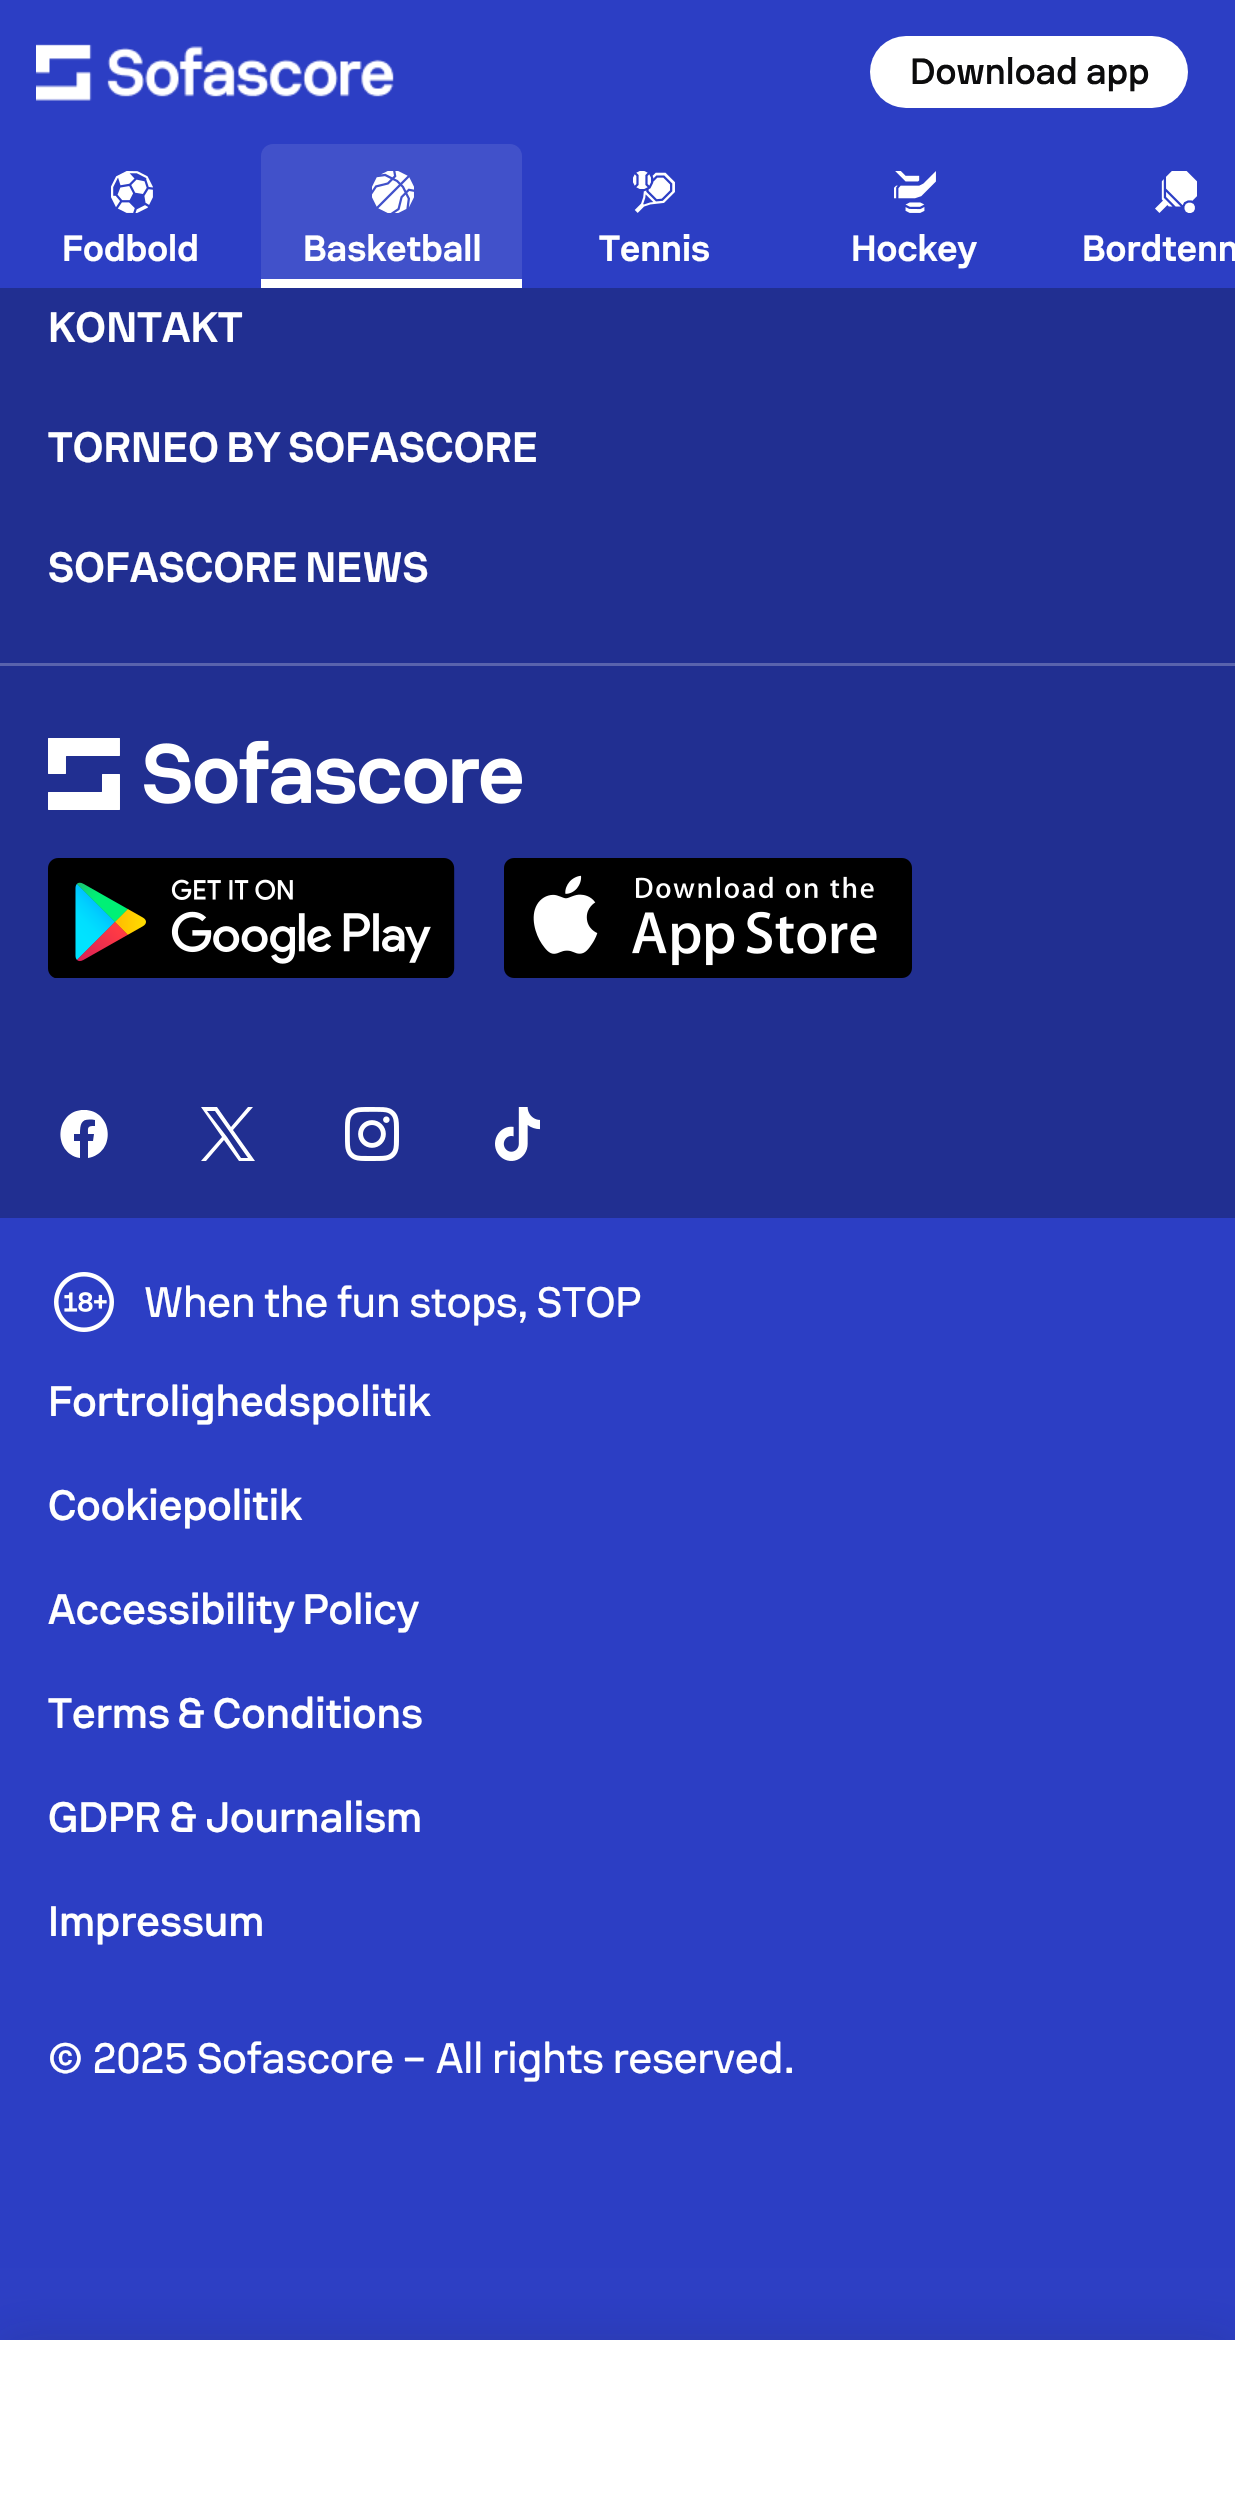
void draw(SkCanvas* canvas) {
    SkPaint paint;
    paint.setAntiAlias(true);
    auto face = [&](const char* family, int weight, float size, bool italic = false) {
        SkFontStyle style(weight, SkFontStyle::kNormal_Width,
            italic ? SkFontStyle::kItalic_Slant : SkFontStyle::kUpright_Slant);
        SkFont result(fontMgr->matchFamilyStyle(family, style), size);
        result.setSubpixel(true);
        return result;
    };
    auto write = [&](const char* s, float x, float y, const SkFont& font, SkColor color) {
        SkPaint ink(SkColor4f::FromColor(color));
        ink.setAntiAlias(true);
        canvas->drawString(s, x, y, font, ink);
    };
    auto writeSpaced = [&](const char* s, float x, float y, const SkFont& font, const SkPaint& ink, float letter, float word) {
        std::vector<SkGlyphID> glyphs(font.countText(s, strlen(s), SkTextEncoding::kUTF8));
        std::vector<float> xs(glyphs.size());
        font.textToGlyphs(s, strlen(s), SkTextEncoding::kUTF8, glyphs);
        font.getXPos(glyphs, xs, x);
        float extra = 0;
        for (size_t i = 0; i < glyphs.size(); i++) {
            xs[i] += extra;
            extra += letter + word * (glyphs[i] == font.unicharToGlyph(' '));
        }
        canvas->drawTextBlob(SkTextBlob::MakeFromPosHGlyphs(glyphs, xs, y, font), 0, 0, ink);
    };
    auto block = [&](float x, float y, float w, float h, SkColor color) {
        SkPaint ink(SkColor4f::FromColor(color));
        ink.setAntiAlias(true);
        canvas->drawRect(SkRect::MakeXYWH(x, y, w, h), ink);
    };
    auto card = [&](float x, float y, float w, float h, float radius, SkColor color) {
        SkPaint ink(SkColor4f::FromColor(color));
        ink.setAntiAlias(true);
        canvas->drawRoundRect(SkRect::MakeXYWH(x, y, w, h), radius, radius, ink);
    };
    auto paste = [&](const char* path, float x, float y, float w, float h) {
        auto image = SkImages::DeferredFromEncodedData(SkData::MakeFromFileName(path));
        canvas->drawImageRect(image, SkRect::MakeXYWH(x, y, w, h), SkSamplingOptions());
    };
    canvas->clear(SkColorSetRGB(44, 62, 196));
    paste("pic1.png", 36, 44, 358, 57);
    card(870, 36, 318, 72, 36, SK_ColorWHITE);
    auto kFont1 = face("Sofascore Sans", 500, 36);
    write("Download app", 910, 84, kFont1, SkColorSetRGB(12, 12, 13));
    paste("pic2.png", 111, 171, 42, 42);
    auto kFont2 = face("Sofascore Sans", 700, 36);
    write("Fodbold", 62, 261, kFont2, SK_ColorWHITE);
    paint.setColor(SkColorSetRGB(65, 81, 202));
    canvas->drawPath(SkPathBuilder().moveTo(273, 144).lineTo(510, 144).cubicTo(516.5f, 144, 522, 149.5f, 522, 156).lineTo(522, 288).lineTo(261, 288).lineTo(261, 156).cubicTo(261, 149.5f, 266.5f, 144, 273, 144).close().detach(), paint);
    block(261, 279, 261, 9, SK_ColorWHITE);
    paste("pic3.png", 372, 171, 42, 42);
    write("Basketball", 303, 261, kFont2, SK_ColorWHITE);
    paste("pic4.png", 633, 171, 42, 42);
    write("Tennis", 599, 261, kFont2, SK_ColorWHITE);
    paste("pic5.png", 894, 171, 42, 42);
    write("Hockey", 851, 261, kFont2, SK_ColorWHITE);
    paste("pic6.png", 1155, 171, 42, 42);
    write("Bordtenn", 1082, 261, kFont2, SK_ColorWHITE);
    block(0, 288, 1235, 930, SkColorSetRGB(33, 47, 145));
    block(0, 663, 1235, 3, SkColorSetRGB(89, 99, 173));
    auto kFont3 = face("Sofascore Sans", 700, 42);
    paint.setColor(SK_ColorWHITE);
    writeSpaced("KONTAKT", 48, 342, kFont3, paint, 0.25f, 0);
    writeSpaced("TORNEO BY SOFASCORE", 48, 462, kFont3, paint, 0.25f, -2);
    writeSpaced("SOFASCORE NEWS", 48, 582, kFont3, paint, 0.25f, -2);
    paste("pic7.png", 48, 738, 474, 72);
    paste("pic8.png", 48, 858, 407, 120);
    paste("pic9.png", 504, 858, 408, 120);
    canvas->drawPath(SkPathBuilder().moveTo(84, 1110).cubicTo(55, 1110, 52, 1153, 80, 1158).lineTo(80, 1141).lineTo(74, 1141).lineTo(74, 1134).lineTo(80, 1134).cubicTo(80, 1122, 82, 1118, 95, 1120).lineTo(95, 1126).cubicTo(87, 1126, 88, 1127, 88, 1134).lineTo(94, 1134).lineTo(93, 1141).lineTo(88, 1141).lineTo(88, 1158).cubicTo(117, 1153, 113, 1110, 84, 1110).close().detach(), paint);
    canvas->drawPath(SkPathBuilder().moveTo(233, 1130).lineTo(253, 1107).lineTo(248, 1107).lineTo(231, 1127).lineTo(217, 1107).lineTo(201, 1107).lineTo(222, 1137).lineTo(201, 1161).lineTo(206, 1161).lineTo(224, 1140).lineTo(239, 1161).lineTo(255, 1161).close().moveTo(227, 1137).lineTo(207, 1111).lineTo(215, 1111).lineTo(248, 1158).lineTo(241, 1158).close().detach(), paint);
    paste("pic10.png", 345, 1107, 54, 54);
    paste("pic11.png", 495, 1107, 45, 54);
    paste("pic12.png", 54, 1272, 60, 60);
    auto kFont4 = face("Sofascore Sans", 400, 42);
    writeSpaced("When the fun stops, STOP", 144, 1317, kFont4, paint, -0.1f, -1);
    auto kFont5 = face("Sofascore Sans", 500, 42);
    write("Fortrolighedspolitik", 48, 1416, kFont5, SK_ColorWHITE);
    write("Cookiepolitik", 48, 1520, kFont5, SK_ColorWHITE);
    writeSpaced("Accessibility Policy", 48, 1624, kFont5, paint, 0, -2);
    writeSpaced("Terms & Conditions", 48, 1728, kFont5, paint, 0, -2);
    writeSpaced("GDPR & Journalism", 48, 1832, kFont5, paint, 0, -1);
    write("Impressum", 48, 1936, kFont5, SK_ColorWHITE);
    writeSpaced("© 2025", 48, 2073, kFont4, paint, -0.1f, 0);
    writeSpaced("Sofascore –", 197, 2073, kFont4, paint, -0.1f, -1);
    writeSpaced("All rights reserved", 436, 2073, kFont4, paint, -0.1f, -1);
    writeSpaced(".", 784, 2073, kFont4, paint, -0.1f, 0);
    paint.setColor(SkColorSetARGB(41, 34, 34, 38));
    paint.setMaskFilter(SkMaskFilter::MakeBlur(kNormal_SkBlurStyle, 24));
    canvas->drawRect(SkRect::MakeXYWH(-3, 2340, 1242, 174), paint);
    paint.setMaskFilter(nullptr);
    block(0, 2340, 1235, 166, SK_ColorWHITE);
}
